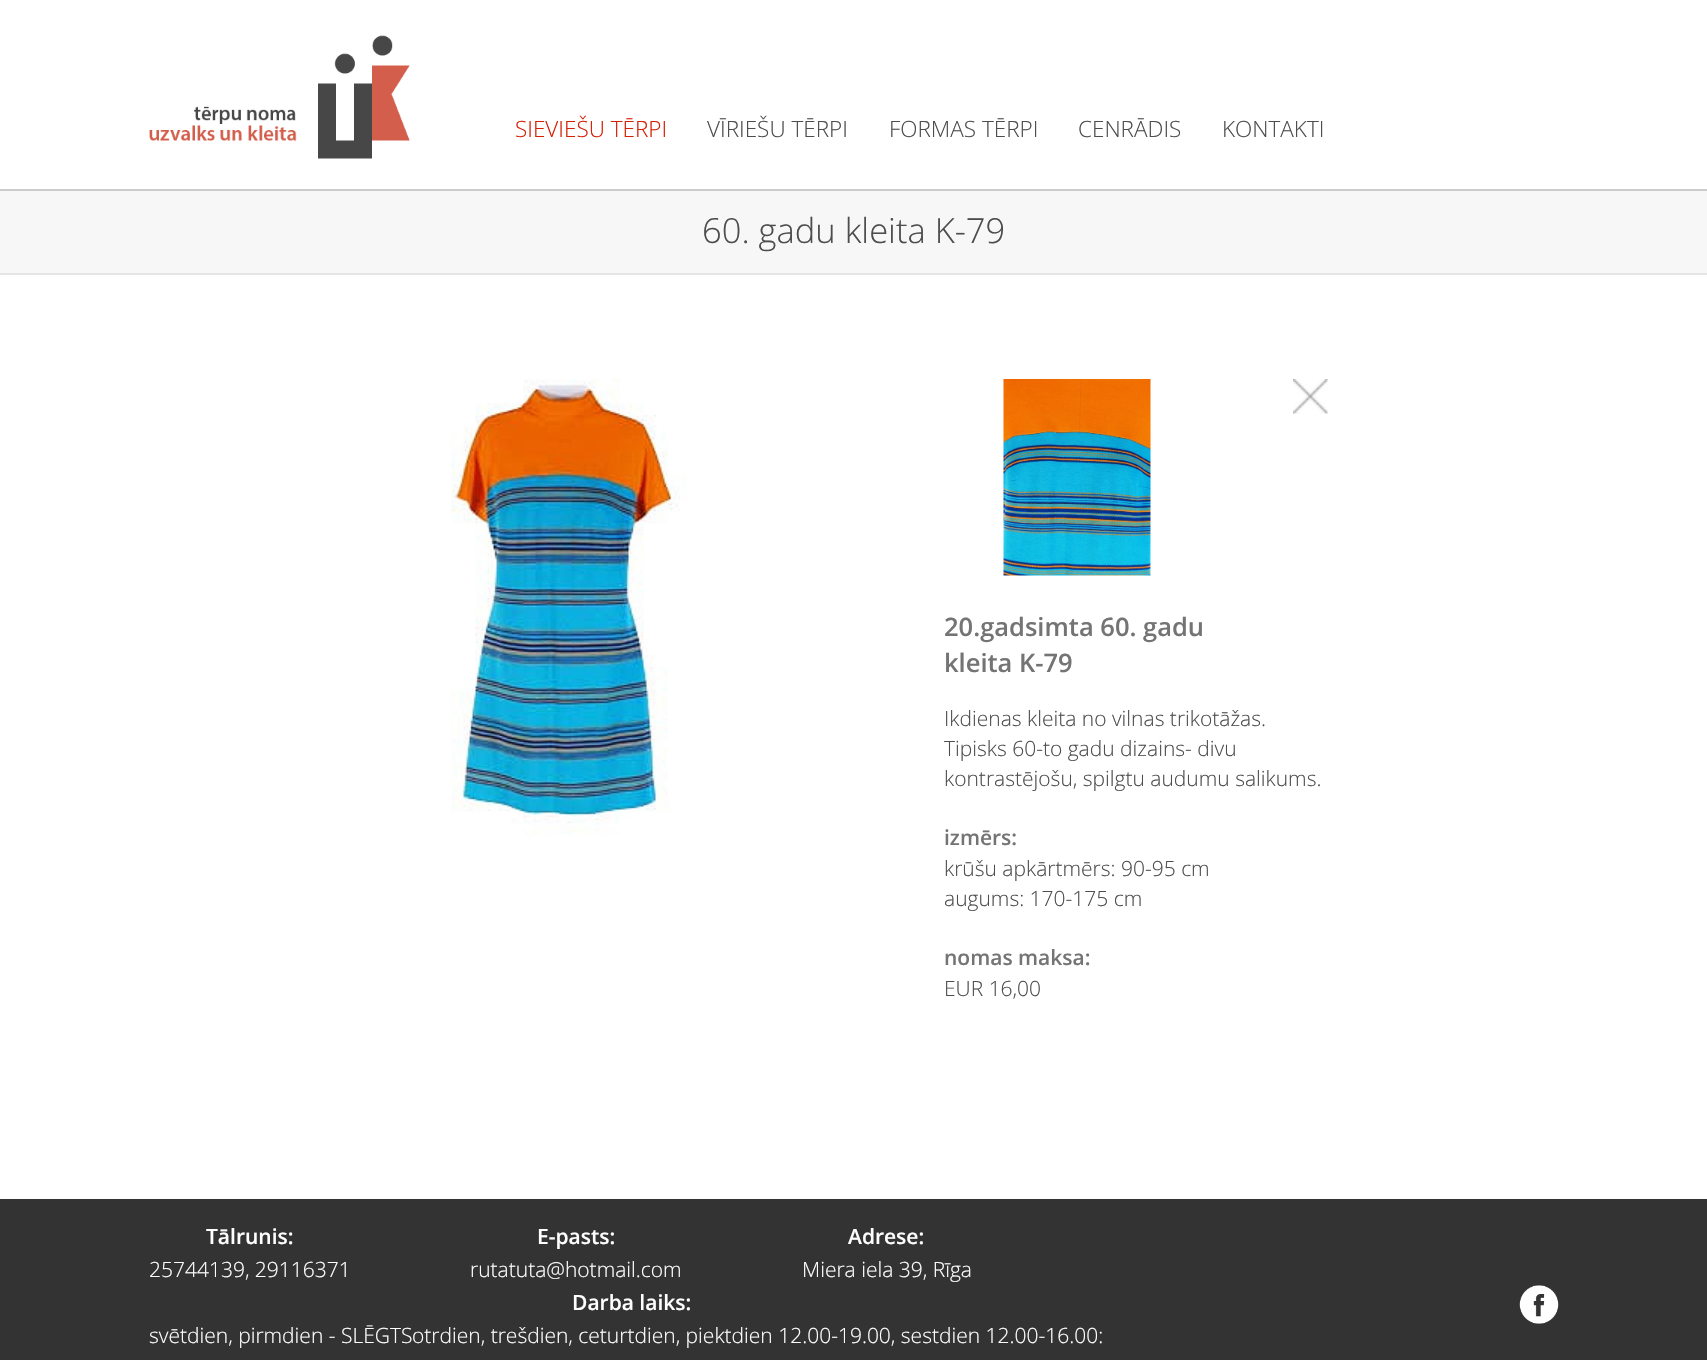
void draw(SkCanvas* canvas) {
    SkPaint paint;
    paint.setAntiAlias(true);
    auto face = [&](const char* family, int weight, float size, bool italic = false) {
        SkFontStyle style(weight, SkFontStyle::kNormal_Width,
            italic ? SkFontStyle::kItalic_Slant : SkFontStyle::kUpright_Slant);
        SkFont result(fontMgr->matchFamilyStyle(family, style), size);
        result.setSubpixel(true);
        return result;
    };
    auto write = [&](const char* s, float x, float y, const SkFont& font, SkColor color) {
        SkPaint ink(SkColor4f::FromColor(color));
        ink.setAntiAlias(true);
        canvas->drawString(s, x, y, font, ink);
    };
    auto block = [&](float x, float y, float w, float h, SkColor color) {
        SkPaint ink(SkColor4f::FromColor(color));
        ink.setAntiAlias(true);
        canvas->drawRect(SkRect::MakeXYWH(x, y, w, h), ink);
    };
    auto paste = [&](const char* path, float x, float y, float w, float h) {
        auto image = SkImages::DeferredFromEncodedData(SkData::MakeFromFileName(path));
        canvas->drawImageRect(image, SkRect::MakeXYWH(x, y, w, h), SkSamplingOptions());
    };
    canvas->clear(SK_ColorWHITE);
    paste("pic1.png", 149, 35, 261, 124);
    auto kFont1 = face("Open Sans", 300, 22.5f);
    write("SIEVIEŠU TĒRPI", 515, 137, kFont1, SkColorSetRGB(213, 32, 4));
    write("VĪRIEŠU TĒRPI", 707, 137, kFont1, SkColorSetRGB(77, 77, 77));
    write("FORMAS TĒRPI", 889, 137, kFont1, SkColorSetRGB(77, 77, 77));
    write("CENRĀDIS", 1078, 137, kFont1, SkColorSetRGB(77, 77, 77));
    write("KONTAKTI", 1222, 137, kFont1, SkColorSetRGB(77, 77, 77));
    block(0, 191, 1707, 82, SkColorSetRGB(247, 247, 247));
    block(0, 189, 1707, 2, SkColorSetRGB(204, 204, 204));
    block(0, 273, 1707, 2, SkColorSetRGB(229, 229, 229));
    auto kFont2 = face("Open Sans", 300, 34.5f);
    write("60. gadu kleita K-79", 702, 243, kFont2, SkColorSetRGB(77, 77, 77));
    paste("pic2.png", 451, 379, 236, 456);
    paste("pic3.png", 1003, 379, 148, 197);
    paste("pic4.png", 1293, 379, 35, 35);
    auto kFont3 = face("Open Sans", 600, 25.5f);
    write("20.gadsimta 60. gadu", 944, 636, kFont3, SkColorSetRGB(116, 116, 116));
    write("kleita K-79", 944, 672, kFont3, SkColorSetRGB(116, 116, 116));
    auto kFont4 = face("Open Sans", 300, 21);
    write("Ikdienas kleita no vilnas trikotāžas.", 944, 726, kFont4, SkColorSetRGB(77, 77, 77));
    write("Tipisks 60-to gadu dizains- divu", 944, 756, kFont4, SkColorSetRGB(77, 77, 77));
    write("kontrastējošu, spilgtu audumu salikums.", 944, 786, kFont4, SkColorSetRGB(77, 77, 77));
    auto kFont5 = face("Open Sans", 600, 21);
    write("izmērs:", 944, 845, kFont5, SkColorSetRGB(116, 116, 116));
    write("krūšu apkārtmērs: 90-95 cm", 944, 876, kFont4, SkColorSetRGB(77, 77, 77));
    write("augums: 170-175 cm", 944, 906, kFont4, SkColorSetRGB(77, 77, 77));
    write("nomas maksa:", 944, 965, kFont5, SkColorSetRGB(116, 116, 116));
    write("EUR 16,00", 944, 996, kFont4, SkColorSetRGB(77, 77, 77));
    block(0, 1199, 1707, 161, SkColorSetRGB(51, 51, 51));
    write("Tālrunis:", 206, 1244, kFont5, SK_ColorWHITE);
    write("25744139, 29116371", 149, 1277, kFont4, SK_ColorWHITE);
    write("E-pasts:", 537, 1244, kFont5, SK_ColorWHITE);
    write("rutatuta@hotmail.com", 470, 1277, kFont4, SK_ColorWHITE);
    write("Adrese:", 848, 1244, kFont5, SK_ColorWHITE);
    write("Miera iela 39, Rīga", 802, 1277, kFont4, SK_ColorWHITE);
    write("Darba laiks:", 572, 1310, kFont5, SK_ColorWHITE);
    write("svētdien, pirmdien - SLĒGTS", 149, 1343, kFont4, SK_ColorWHITE);
    write("otrdien, trešdien, ceturtdien, piektdien 12.00-19.00, sestdien 12.00-16.00:", 412, 1343, kFont4, SK_ColorWHITE);
    paste("pic5.png", 1519, 1285, 40, 39);
}
